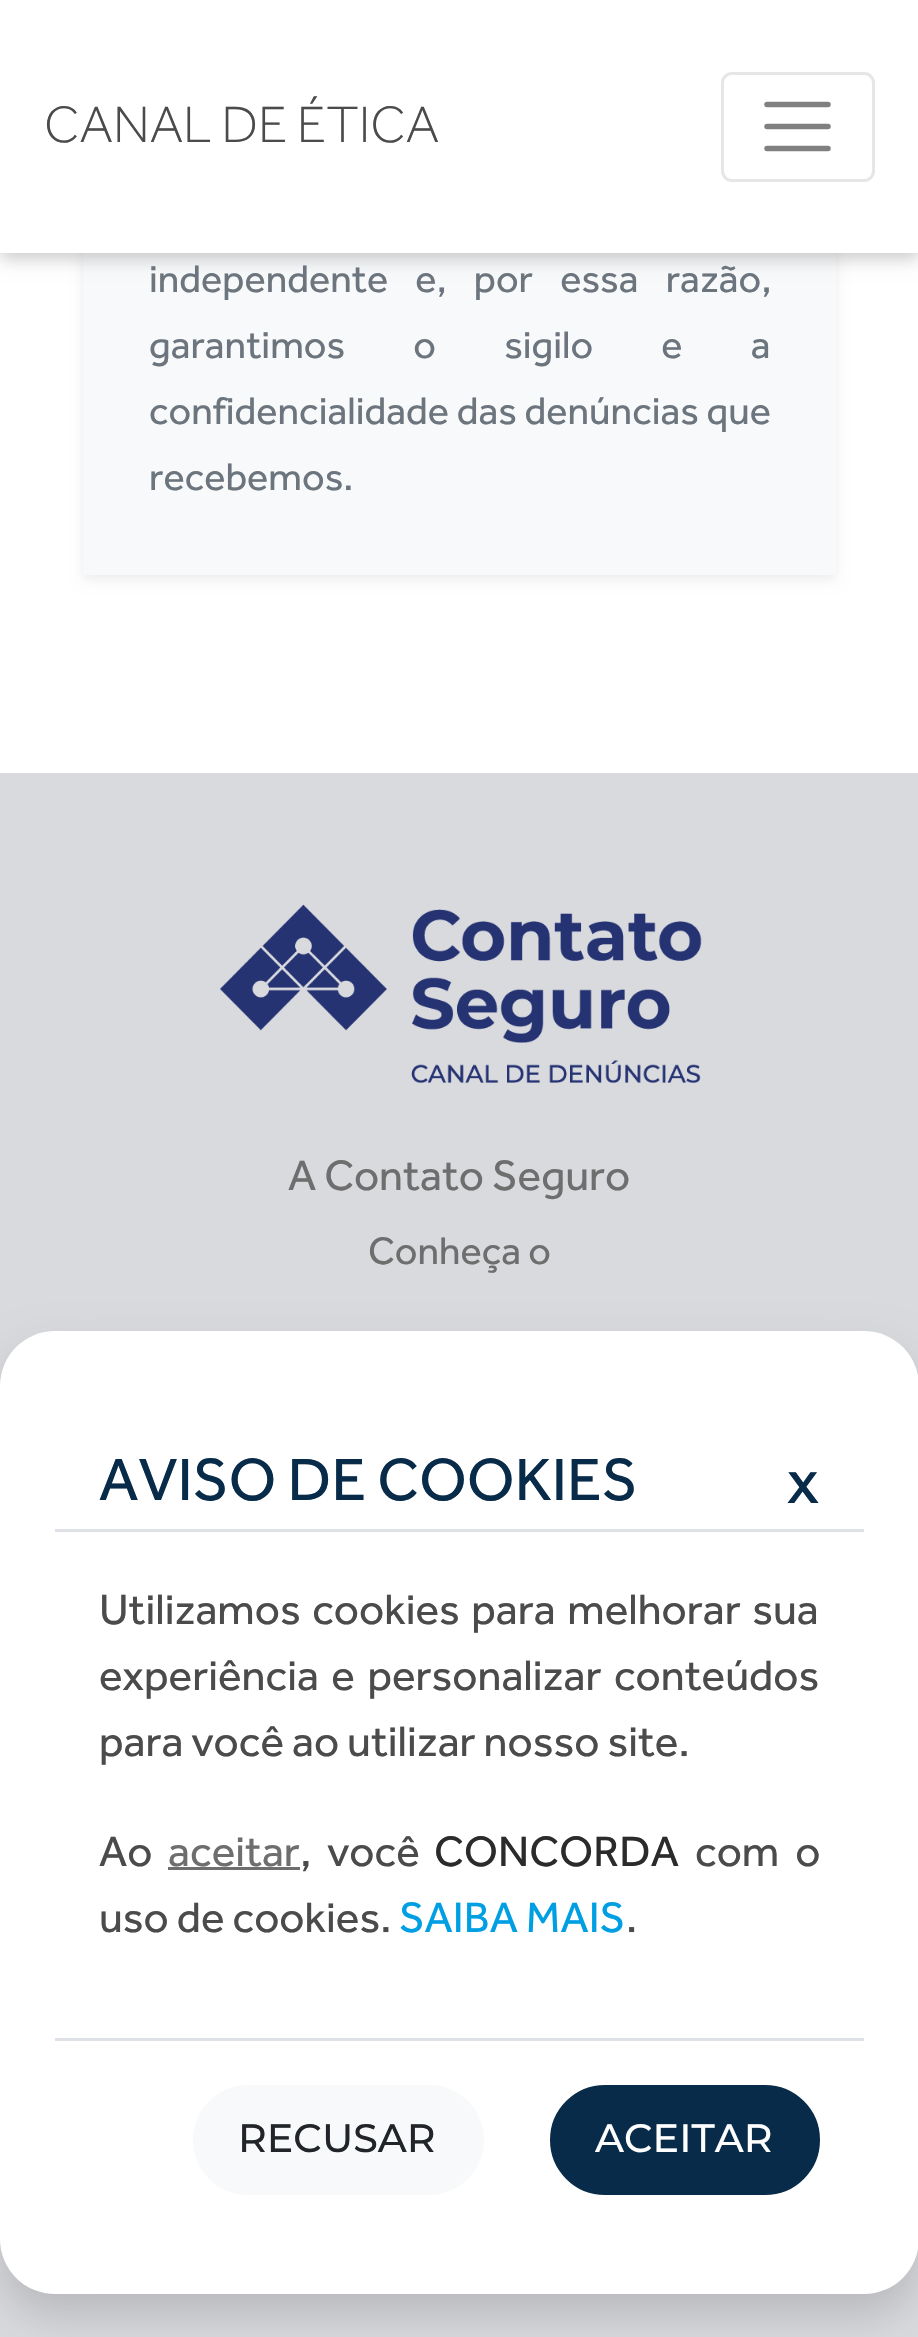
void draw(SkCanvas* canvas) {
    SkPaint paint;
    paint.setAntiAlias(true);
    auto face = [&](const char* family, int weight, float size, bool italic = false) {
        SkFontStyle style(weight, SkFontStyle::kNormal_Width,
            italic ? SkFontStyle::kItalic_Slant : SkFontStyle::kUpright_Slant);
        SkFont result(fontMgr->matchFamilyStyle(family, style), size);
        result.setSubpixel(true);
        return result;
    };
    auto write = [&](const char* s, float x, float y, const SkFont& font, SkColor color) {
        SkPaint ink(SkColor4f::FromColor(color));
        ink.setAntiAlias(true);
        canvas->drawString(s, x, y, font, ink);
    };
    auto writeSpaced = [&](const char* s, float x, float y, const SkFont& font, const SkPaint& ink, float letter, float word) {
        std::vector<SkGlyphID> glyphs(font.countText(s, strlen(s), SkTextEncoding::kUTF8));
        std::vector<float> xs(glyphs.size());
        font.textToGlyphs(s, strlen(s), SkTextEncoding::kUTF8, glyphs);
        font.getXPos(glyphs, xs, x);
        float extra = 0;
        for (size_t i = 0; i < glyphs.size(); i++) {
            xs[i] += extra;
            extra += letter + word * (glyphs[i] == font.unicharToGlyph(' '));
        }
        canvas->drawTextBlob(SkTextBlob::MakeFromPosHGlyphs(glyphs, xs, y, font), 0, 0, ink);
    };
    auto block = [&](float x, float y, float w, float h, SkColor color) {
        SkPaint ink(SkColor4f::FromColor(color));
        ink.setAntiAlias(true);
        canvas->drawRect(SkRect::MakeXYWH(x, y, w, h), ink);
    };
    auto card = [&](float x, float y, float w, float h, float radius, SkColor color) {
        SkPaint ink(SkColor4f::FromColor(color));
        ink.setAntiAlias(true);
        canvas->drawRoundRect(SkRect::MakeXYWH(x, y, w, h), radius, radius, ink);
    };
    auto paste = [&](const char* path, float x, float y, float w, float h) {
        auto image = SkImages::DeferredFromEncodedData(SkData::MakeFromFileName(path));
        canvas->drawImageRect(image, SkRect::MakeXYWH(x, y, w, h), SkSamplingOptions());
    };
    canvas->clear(SkColorSetRGB(217, 218, 222));
    block(0, 253, 918, 520, SK_ColorWHITE);
    paint.setColor(SkColorSetARGB(18, 0, 0, 0));
    paint.setMaskFilter(SkMaskFilter::MakeBlur(kNormal_SkBlurStyle, 5.5f));
    canvas->drawRect(SkRect::MakeXYWH(83, -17, 753, 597), paint);
    paint.setMaskFilter(nullptr);
    block(83, 253, 753, 322, SkColorSetRGB(248, 249, 250));
    paint.setColor(SkColorSetARGB(51, 0, 0, 0));
    paint.setMaskFilter(SkMaskFilter::MakeBlur(kNormal_SkBlurStyle, 8));
    canvas->drawRect(SkRect::MakeXYWH(0, 6, 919, 253), paint);
    paint.setMaskFilter(nullptr);
    block(0, 0, 918, 253, SK_ColorWHITE);
    auto kFont1 = face("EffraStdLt", 400, 52.75f);
    write("CANAL DE ÉTICA", 44, 142, kFont1, SkColorSetRGB(75, 75, 75));
    paint.setStyle(SkPaint::kStroke_Style);
    paint.setStrokeWidth(3);
    paint.setColor(SkColorSetRGB(230, 230, 230));
    canvas->drawRoundRect(SkRect::MakeXYWH(722.5f, 73.5f, 151, 107), 9.5f, 9.5f, paint);
    paint.setStrokeWidth(5.5f);
    paint.setStrokeCap(SkPaint::kRound_Cap);
    paint.setColor(SkColorSetRGB(128, 128, 128));
    canvas->drawPath(SkPathBuilder().moveTo(767, 104.5f).lineTo(828, 104.5f).moveTo(767, 126.5f).lineTo(828, 126.5f).moveTo(767, 148.5f).lineTo(828, 148.5f).detach(), paint);
    auto kFont2 = face("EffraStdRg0", 400, 39.6f);
    paint.setStyle(SkPaint::kFill_Style);
    paint.setColor(SkColorSetRGB(108, 117, 125));
    writeSpaced("independente e, por essa razão,", 149, 292, kFont2, paint, 0, 20);
    writeSpaced("garantimos o sigilo e a", 149, 358, kFont2, paint, 0, 61);
    writeSpaced("confidencialidade das denúncias que", 149, 424, kFont2, paint, 0, 0.5f);
    write("recebemos.", 149, 490, kFont2, SkColorSetRGB(108, 117, 125));
    paste("pic1.png", 220, 904, 482, 179);
    auto kFont3 = face("EffraStdRg0", 400, 44);
    write("A Contato Seguro", 288, 1190, kFont3, SkColorSetRGB(110, 110, 110));
    write("Conheça o", 368, 1264, kFont2, SkColorSetRGB(110, 110, 110));
    paint.setColor(SkColorSetARGB(38, 0, 0, 0));
    paint.setMaskFilter(SkMaskFilter::MakeBlur(kNormal_SkBlurStyle, 22));
    canvas->drawRoundRect(SkRect::MakeXYWH(0, 1353, 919, 963), 55, 55, paint);
    paint.setMaskFilter(nullptr);
    card(0, 1331, 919, 963, 55, SK_ColorWHITE);
    block(55, 2038, 809, 3, SkColorSetRGB(222, 226, 230));
    block(55, 1529, 809, 3, SkColorSetRGB(222, 226, 230));
    auto kFont4 = face("EffraStdRg0", 400, 61.5f);
    write("AVISO DE COOKIES", 99, 1500, kFont4, SkColorSetRGB(7, 43, 73));
    auto kFont5 = face("EffraStdRg0", 400, 66);
    write("x", 787, 1503, kFont5, SkColorSetRGB(7, 43, 73));
    paint.setColor(SkColorSetRGB(75, 75, 75));
    writeSpaced("Utilizamos cookies para melhorar sua", 99, 1624, kFont3, paint, 0, 3.5f);
    writeSpaced("experiência e personalizar conteúdos", 99, 1690, kFont3, paint, 0, 4.5f);
    write("para você ao utilizar nosso site.", 99, 1756, kFont3, SkColorSetRGB(75, 75, 75));
    write("Ao", 99, 1866, kFont3, SkColorSetRGB(75, 75, 75));
    write("aceitar", 168, 1866, kFont3, SkColorSetRGB(110, 110, 110));
    block(168, 1867, 132, 3, SkColorSetRGB(110, 110, 110));
    writeSpaced(", você", 300, 1866, kFont3, paint, 0, 8);
    write("CONCORDA", 434, 1866, kFont3, SkColorSetRGB(43, 43, 43));
    writeSpaced("com o", 695, 1866, kFont3, paint, 0, 8);
    write("uso de cookies.", 99, 1932, kFont3, SkColorSetRGB(75, 75, 75));
    write("SAIBA MAIS", 399, 1932, kFont3, SkColorSetRGB(0, 159, 227));
    write(".", 626, 1932, kFont3, SkColorSetRGB(75, 75, 75));
    card(193, 2085, 291, 110, 55, SkColorSetRGB(248, 249, 250));
    auto kFont6 = face("Montserrat", 500, 39.6f);
    write("RECUSAR", 238, 2152, kFont6, SkColorSetRGB(33, 37, 41));
    paint.setColor(SkColorSetRGB(7, 43, 73));
    canvas->drawRoundRect(SkRect::MakeXYWH(551.5f, 2086.5f, 267, 107), 53.5f, 53.5f, paint);
    paint.setStyle(SkPaint::kStroke_Style);
    paint.setStrokeWidth(3);
    paint.setStrokeCap(SkPaint::kButt_Cap);
    canvas->drawRoundRect(SkRect::MakeXYWH(551.5f, 2086.5f, 267, 107), 53.5f, 53.5f, paint);
    write("ACEITAR", 595, 2152, kFont6, SK_ColorWHITE);
}
